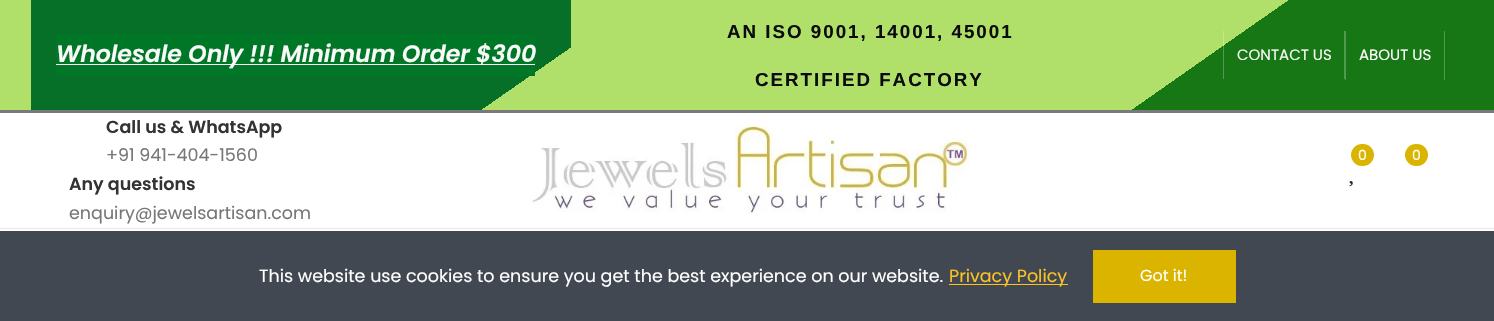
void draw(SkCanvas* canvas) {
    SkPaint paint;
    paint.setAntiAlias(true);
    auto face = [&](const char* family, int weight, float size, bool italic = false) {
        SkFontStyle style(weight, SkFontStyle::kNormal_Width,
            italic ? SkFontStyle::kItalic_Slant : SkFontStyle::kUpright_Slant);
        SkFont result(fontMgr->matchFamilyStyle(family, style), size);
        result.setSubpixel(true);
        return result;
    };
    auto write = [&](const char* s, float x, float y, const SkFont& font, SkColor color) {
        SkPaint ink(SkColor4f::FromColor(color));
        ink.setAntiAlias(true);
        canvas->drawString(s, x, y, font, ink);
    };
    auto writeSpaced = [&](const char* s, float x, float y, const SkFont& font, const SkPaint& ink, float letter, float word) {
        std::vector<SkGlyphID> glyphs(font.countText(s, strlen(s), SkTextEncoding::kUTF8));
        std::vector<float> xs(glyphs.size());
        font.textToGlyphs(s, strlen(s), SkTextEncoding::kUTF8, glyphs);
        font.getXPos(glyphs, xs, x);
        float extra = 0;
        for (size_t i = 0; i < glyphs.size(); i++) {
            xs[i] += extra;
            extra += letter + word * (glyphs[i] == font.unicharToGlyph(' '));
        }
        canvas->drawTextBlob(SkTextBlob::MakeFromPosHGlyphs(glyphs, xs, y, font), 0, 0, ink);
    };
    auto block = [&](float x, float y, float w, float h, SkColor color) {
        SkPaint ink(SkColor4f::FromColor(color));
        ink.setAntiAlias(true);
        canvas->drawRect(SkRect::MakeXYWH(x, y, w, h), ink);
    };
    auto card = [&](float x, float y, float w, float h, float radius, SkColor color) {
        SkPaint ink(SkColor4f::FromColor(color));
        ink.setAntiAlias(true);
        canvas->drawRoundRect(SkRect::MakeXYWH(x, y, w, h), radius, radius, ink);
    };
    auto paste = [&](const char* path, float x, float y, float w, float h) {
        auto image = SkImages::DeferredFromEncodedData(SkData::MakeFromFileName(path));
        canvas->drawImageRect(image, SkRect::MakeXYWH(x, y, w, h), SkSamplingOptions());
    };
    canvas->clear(SK_ColorWHITE);
    {
        const SkColor colors[] = {SkColorSetRGB(176, 224, 105), SkColorSetRGB(23, 119, 21)};
        const float stops[] = {0.78f, 0.78f};
        const SkPoint ends[] = {{476, -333}, {1019, 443}};
        paint.setShader(SkGradientShader::MakeLinear(ends, colors, stops, 2, SkTileMode::kClamp));
        paint.setAlpha(255);
    }
    canvas->drawRect(SkRect::MakeXYWH(0, 0, 1494, 110), paint);
    {
        const SkColor colors[] = {SkColorSetRGB(196, 232, 143), SkColorSetRGB(81, 153, 80)};
        const float stops[] = {0.78f, 0.78f};
        const SkPoint ends[] = {{476, -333}, {1019, 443}};
        paint.setShader(SkGradientShader::MakeLinear(ends, colors, stops, 2, SkTileMode::kClamp));
        paint.setAlpha(255);
    }
    canvas->drawRect(SkRect::MakeXYWH(1223, 31, 1, 48), paint);
    block(0, 110, 1494, 3, SkColorSetRGB(122, 122, 122));
    {
        const SkColor colors[] = {SkColorSetRGB(6, 112, 41), SkColorSetRGB(176, 224, 105)};
        const float stops[] = {0.87f, 0.87f};
        const SkPoint ends[] = {{187, -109}, {416, 219}};
        paint.setShader(SkGradientShader::MakeLinear(ends, colors, stops, 2, SkTileMode::kClamp));
        paint.setAlpha(255);
    }
    canvas->drawRect(SkRect::MakeXYWH(31, 0, 540, 110), paint);
    block(56, 34, 479, 42, SkColorSetRGB(0, 119, 39));
    block(56, 64, 479, 1, SkColorSetRGB(249, 249, 249));
    auto kFont1 = face("Poppins", 600, 23.75f, true);
    paint.setShader(nullptr);
    paint.setColor(SkColorSetRGB(249, 249, 249));
    writeSpaced("Wholesale Only !!! Minimum Order $300", 56, 62, kFont1, paint, -0.1f, 0);
    auto kFont2 = face("Liberation Sans", 700, 18.75f);
    paint.setColor(SkColorSetRGB(12, 12, 12));
    writeSpaced("AN ISO 9001, 14001, 45001", 727, 38, kFont2, paint, 2, 0);
    writeSpaced("CERTIFIED FACTORY", 755, 86, kFont2, paint, 2, 0);
    block(1344, 31, 1, 48, SkColorSetRGB(81, 153, 80));
    auto kFont3 = face("Poppins", 400, 15);
    write("CONTACT US", 1237, 60, kFont3, SkColorSetRGB(249, 249, 249));
    block(1444, 31, 1, 49, SkColorSetRGB(81, 153, 80));
    block(1345, 31, 1, 49, SkColorSetRGB(81, 153, 80));
    write("ABOUT US", 1359, 60, kFont3, SK_ColorWHITE);
    block(0, 228, 1494, 1, SkColorSetRGB(232, 232, 232));
    auto kFont4 = face("Poppins", 600, 17.5f);
    write("Call us & WhatsApp", 106, 133, kFont4, SkColorSetRGB(51, 51, 51));
    auto kFont5 = face("Poppins", 400, 17.5f);
    write("+91 941-404-1560", 106, 161, kFont5, SkColorSetRGB(119, 119, 119));
    write("Any questions", 69, 190, kFont4, SkColorSetRGB(51, 51, 51));
    write("enquiry@jewelsartisan.com", 69, 219, kFont5, SkColorSetRGB(119, 119, 119));
    paste("pic1.png", 530, 124, 440, 91);
    card(1351, 144, 23, 22, 11, SkColorSetRGB(219, 180, 0));
    auto kFont6 = face("Poppins", 400, 14);
    write("0", 1358, 160, kFont6, SK_ColorWHITE);
    paste("pic2.png", 1349, 181, 4, 6);
    card(1405, 144, 23, 22, 11, SkColorSetRGB(219, 180, 0));
    write("0", 1412, 160, kFont6, SK_ColorWHITE);
    block(0, 231, 1494, 90, SkColorSetRGB(66, 72, 81));
    write("This website use cookies to ensure you get the best experience on our website.", 259, 282, kFont5, SK_ColorWHITE);
    block(949, 284, 119, 1, SkColorSetRGB(251, 194, 39));
    write("Privacy Policy", 949, 282, kFont5, SkColorSetRGB(251, 194, 39));
    block(1093, 250, 143, 53, SkColorSetRGB(219, 180, 0));
    auto kFont7 = face("Poppins", 400, 16);
    write("Got it!", 1140, 281, kFont7, SK_ColorWHITE);
}
